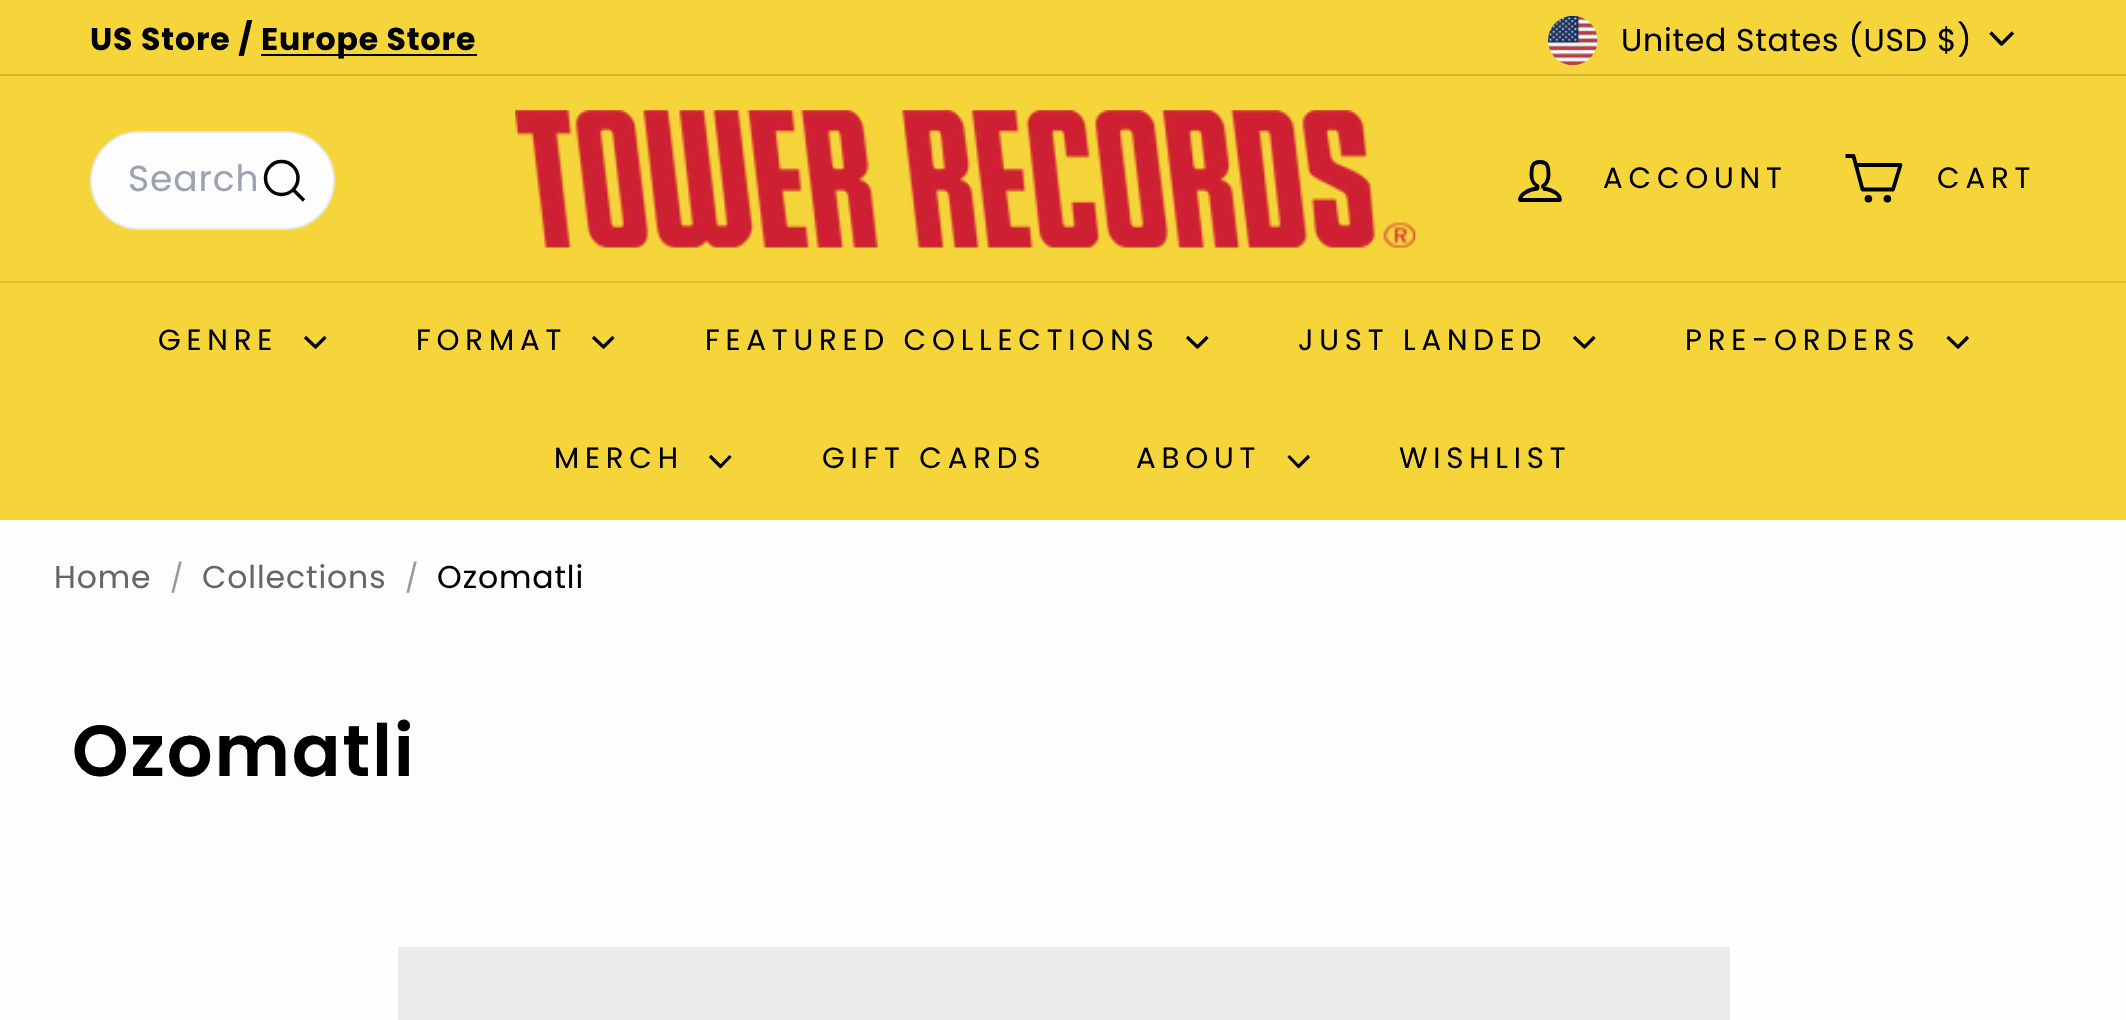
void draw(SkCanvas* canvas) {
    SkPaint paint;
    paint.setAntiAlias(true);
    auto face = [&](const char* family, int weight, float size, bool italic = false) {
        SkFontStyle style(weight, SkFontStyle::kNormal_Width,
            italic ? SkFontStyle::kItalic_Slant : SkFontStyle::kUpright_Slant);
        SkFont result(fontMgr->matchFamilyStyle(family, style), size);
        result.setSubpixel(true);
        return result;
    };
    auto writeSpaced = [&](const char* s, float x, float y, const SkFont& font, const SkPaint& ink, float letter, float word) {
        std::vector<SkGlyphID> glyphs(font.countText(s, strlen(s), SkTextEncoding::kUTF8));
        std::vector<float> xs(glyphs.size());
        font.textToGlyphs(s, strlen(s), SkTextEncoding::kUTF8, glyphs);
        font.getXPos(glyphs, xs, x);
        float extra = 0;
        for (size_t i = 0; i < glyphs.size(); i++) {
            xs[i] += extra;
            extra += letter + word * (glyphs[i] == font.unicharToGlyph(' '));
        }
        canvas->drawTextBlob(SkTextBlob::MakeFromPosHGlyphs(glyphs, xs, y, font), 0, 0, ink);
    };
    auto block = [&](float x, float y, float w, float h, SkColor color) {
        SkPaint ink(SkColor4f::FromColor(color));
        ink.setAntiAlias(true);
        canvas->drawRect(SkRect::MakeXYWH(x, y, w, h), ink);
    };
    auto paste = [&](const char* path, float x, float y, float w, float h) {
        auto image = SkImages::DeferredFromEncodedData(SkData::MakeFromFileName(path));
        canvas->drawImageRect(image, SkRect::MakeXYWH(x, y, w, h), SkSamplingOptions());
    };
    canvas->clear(SkColorSetRGB(253, 253, 253));
    block(0, 0, 2126, 281, SkColorSetRGB(246, 213, 59));
    auto kFont1 = face("Poppins", 700, 31.5f);
    paint.setColor(SK_ColorBLACK);
    writeSpaced("US Store /", 90, 50, kFont1, paint, 0.9f, 0);
    block(261, 54, 216, 2, SK_ColorBLACK);
    writeSpaced("Europe Store", 261, 50, kFont1, paint, 0.9f, 0);
    paste("pic1.png", 1548, 15, 50, 51);
    auto kFont2 = face("Poppins", 400, 31.5f);
    writeSpaced("United States (USD $)", 1621, 51, kFont2, paint, 0.75f, 0);
    paint.setStyle(SkPaint::kStroke_Style);
    paint.setStrokeWidth(3.5f);
    paint.setStrokeJoin(SkPaint::kRound_Join);
    canvas->drawPath(SkPathBuilder().moveTo(1990.5f, 32.5f).lineTo(2001.5f, 44).lineTo(2013, 32.5f).detach(), paint);
    block(0, 74, 2126, 2, SkColorSetRGB(209, 181, 50));
    paint.setStyle(SkPaint::kFill_Style);
    paint.setColor(SkColorSetRGB(253, 253, 253));
    canvas->drawRoundRect(SkRect::MakeXYWH(91, 132, 243, 97), 48.5f, 48.5f, paint);
    paint.setStyle(SkPaint::kStroke_Style);
    paint.setStrokeWidth(2);
    paint.setStrokeJoin(SkPaint::kMiter_Join);
    paint.setColor(SkColorSetRGB(232, 232, 225));
    canvas->drawRoundRect(SkRect::MakeXYWH(91, 132, 243, 97), 48.5f, 48.5f, paint);
    auto kFont3 = face("Poppins", 400, 36);
    paint.setStyle(SkPaint::kFill_Style);
    paint.setColor(SkColorSetRGB(156, 163, 175));
    writeSpaced("Search", 128, 191, kFont3, paint, 0.9f, 0);
    paint.setStyle(SkPaint::kStroke_Style);
    paint.setStrokeWidth(3.5f);
    paint.setStrokeJoin(SkPaint::kRound_Join);
    paint.setColor(SK_ColorBLACK);
    canvas->drawPath(SkPathBuilder().moveTo(298, 178).cubicTo(298, 187, 290.5f, 194.5f, 281.5f, 194.5f).cubicTo(272.5f, 194.5f, 265.5f, 187, 265.5f, 178).cubicTo(265.5f, 169, 272.5f, 161.5f, 281.5f, 161.5f).cubicTo(290.5f, 161.5f, 298, 169, 298, 178).moveTo(304, 200.5f).lineTo(293.5f, 190).detach(), paint);
    paste("pic2.png", 515, 110, 901, 138);
    paint.setStrokeWidth(3.8f);
    canvas->drawPath(SkPathBuilder().moveTo(1543, 188.5f).lineTo(1543, 186).cubicTo(1546, 184.5f, 1548.5f, 180, 1548.5f, 175.5f).cubicTo(1548.5f, 168, 1548.5f, 162, 1540, 162).cubicTo(1531.5f, 162, 1531.5f, 168, 1531.5f, 175.5f).cubicTo(1531.5f, 180, 1534, 184.5f, 1537.5f, 186).lineTo(1537.5f, 188.5f).cubicTo(1527.5f, 189.5f, 1520, 194.5f, 1520, 200).lineTo(1560, 200).cubicTo(1560, 194, 1552.5f, 189.5f, 1543, 188.5f).detach(), paint);
    auto kFont4 = face("Poppins", 400, 29.25f);
    paint.setStyle(SkPaint::kFill_Style);
    writeSpaced("ACCOUNT", 1603, 188, kFont4, paint, 5.8f, 0);
    paint.setStyle(SkPaint::kStroke_Style);
    canvas->drawPath(SkPathBuilder().moveTo(1856, 165).lineTo(1900.5f, 165).lineTo(1893, 189.5f).lineTo(1862.5f, 189.5f).lineTo(1853.5f, 156).lineTo(1845.5f, 156).detach(), paint);
    paint.setStrokeJoin(SkPaint::kMiter_Join);
    canvas->drawCircle(1868.4f, 198.8f, 1.9f, paint);
    canvas->drawCircle(1887.4f, 198.8f, 1.9f, paint);
    paint.setStyle(SkPaint::kFill_Style);
    writeSpaced("CART", 1937, 188, kFont4, paint, 5.8f, 0);
    block(0, 283, 2126, 237, SkColorSetRGB(246, 213, 59));
    block(0, 281, 2126, 2, SkColorSetRGB(221, 192, 53));
    writeSpaced("GENRE", 158, 350, kFont4, paint, 5.8f, 0);
    paint.setStyle(SkPaint::kStroke_Style);
    paint.setStrokeWidth(3.2f);
    paint.setStrokeJoin(SkPaint::kRound_Join);
    canvas->drawPath(SkPathBuilder().moveTo(305, 337).lineTo(315.5f, 347).lineTo(325.5f, 337).detach(), paint);
    paint.setStyle(SkPaint::kFill_Style);
    writeSpaced("FORMAT", 416, 350, kFont4, paint, 5.8f, 0);
    paint.setStyle(SkPaint::kStroke_Style);
    canvas->drawPath(SkPathBuilder().moveTo(593, 337).lineTo(603.5f, 347).lineTo(613.5f, 337).detach(), paint);
    paint.setStyle(SkPaint::kFill_Style);
    writeSpaced("FEATURED COLLECTIONS", 705, 350, kFont4, paint, 5.8f, 0);
    paint.setStyle(SkPaint::kStroke_Style);
    canvas->drawPath(SkPathBuilder().moveTo(1187, 337).lineTo(1197.5f, 347).lineTo(1207.5f, 337).detach(), paint);
    paint.setStyle(SkPaint::kFill_Style);
    writeSpaced("JUST LANDED", 1298, 350, kFont4, paint, 5.8f, 0);
    paint.setStyle(SkPaint::kStroke_Style);
    canvas->drawPath(SkPathBuilder().moveTo(1574, 337).lineTo(1584.5f, 347).lineTo(1594.5f, 337).detach(), paint);
    paint.setStyle(SkPaint::kFill_Style);
    writeSpaced("PRE-ORDERS", 1685, 350, kFont4, paint, 5.8f, 0);
    paint.setStyle(SkPaint::kStroke_Style);
    canvas->drawPath(SkPathBuilder().moveTo(1947.5f, 337).lineTo(1958, 347).lineTo(1968, 337).detach(), paint);
    paint.setStyle(SkPaint::kFill_Style);
    writeSpaced("MERCH", 554, 468, kFont4, paint, 5.8f, 0);
    paint.setStyle(SkPaint::kStroke_Style);
    canvas->drawPath(SkPathBuilder().moveTo(710, 456).lineTo(720.5f, 466.5f).lineTo(730.5f, 456).detach(), paint);
    paint.setStyle(SkPaint::kFill_Style);
    writeSpaced("GIFT CARDS", 822, 468, kFont4, paint, 5.8f, 0);
    writeSpaced("ABOUT", 1136, 468, kFont4, paint, 5.8f, 0);
    paint.setStyle(SkPaint::kStroke_Style);
    canvas->drawPath(SkPathBuilder().moveTo(1288.5f, 456).lineTo(1298.5f, 466.5f).lineTo(1309, 456).detach(), paint);
    paint.setStyle(SkPaint::kFill_Style);
    writeSpaced("WISHLIST", 1399, 468, kFont4, paint, 5.8f, 0);
    paint.setColor(SkColorSetRGB(102, 102, 102));
    writeSpaced("Home", 54, 588, kFont2, paint, 0.9f, 0);
    auto kFont5 = face("Poppins", 400, 28);
    paint.setColor(SkColorSetRGB(153, 153, 153));
    writeSpaced("/", 170, 588, kFont5, paint, 0.9f, 0);
    paint.setColor(SkColorSetRGB(102, 102, 102));
    writeSpaced("Collections", 202, 588, kFont2, paint, 0.9f, 0);
    paint.setColor(SkColorSetRGB(153, 153, 153));
    writeSpaced("/", 405, 588, kFont5, paint, 0.9f, 0);
    paint.setColor(SK_ColorBLACK);
    writeSpaced("Ozomatli", 437, 588, kFont2, paint, 0.9f, 0);
    auto kFont6 = face("Poppins", 600, 72);
    writeSpaced("Ozomatli", 72, 776, kFont6, paint, 1.75f, 0);
    block(398, 947, 1332, 73, SkColorSetRGB(235, 235, 235));
}
